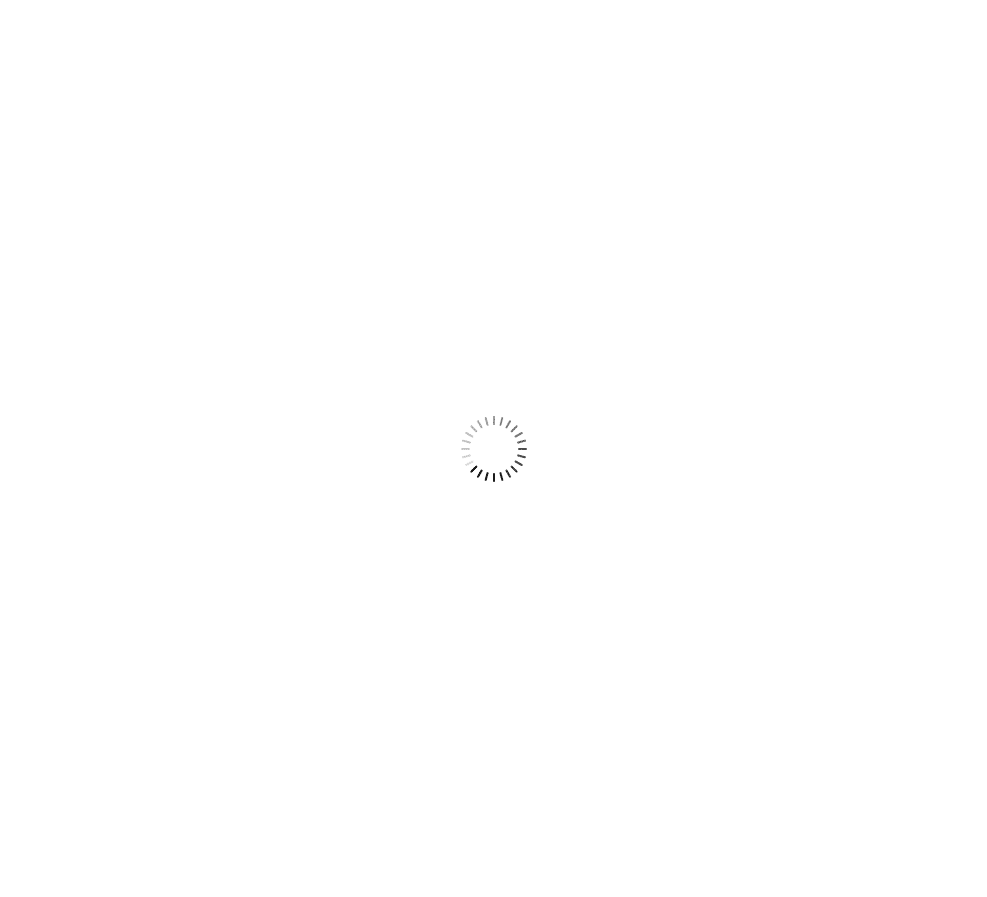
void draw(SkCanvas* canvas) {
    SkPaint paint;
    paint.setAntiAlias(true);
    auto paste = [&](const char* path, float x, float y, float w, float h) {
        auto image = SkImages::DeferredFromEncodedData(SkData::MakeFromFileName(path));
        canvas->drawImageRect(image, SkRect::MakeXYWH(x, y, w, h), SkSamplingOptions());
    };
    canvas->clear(SK_ColorWHITE);
    paste("pic1.png", 461, 416, 66, 66);
}
